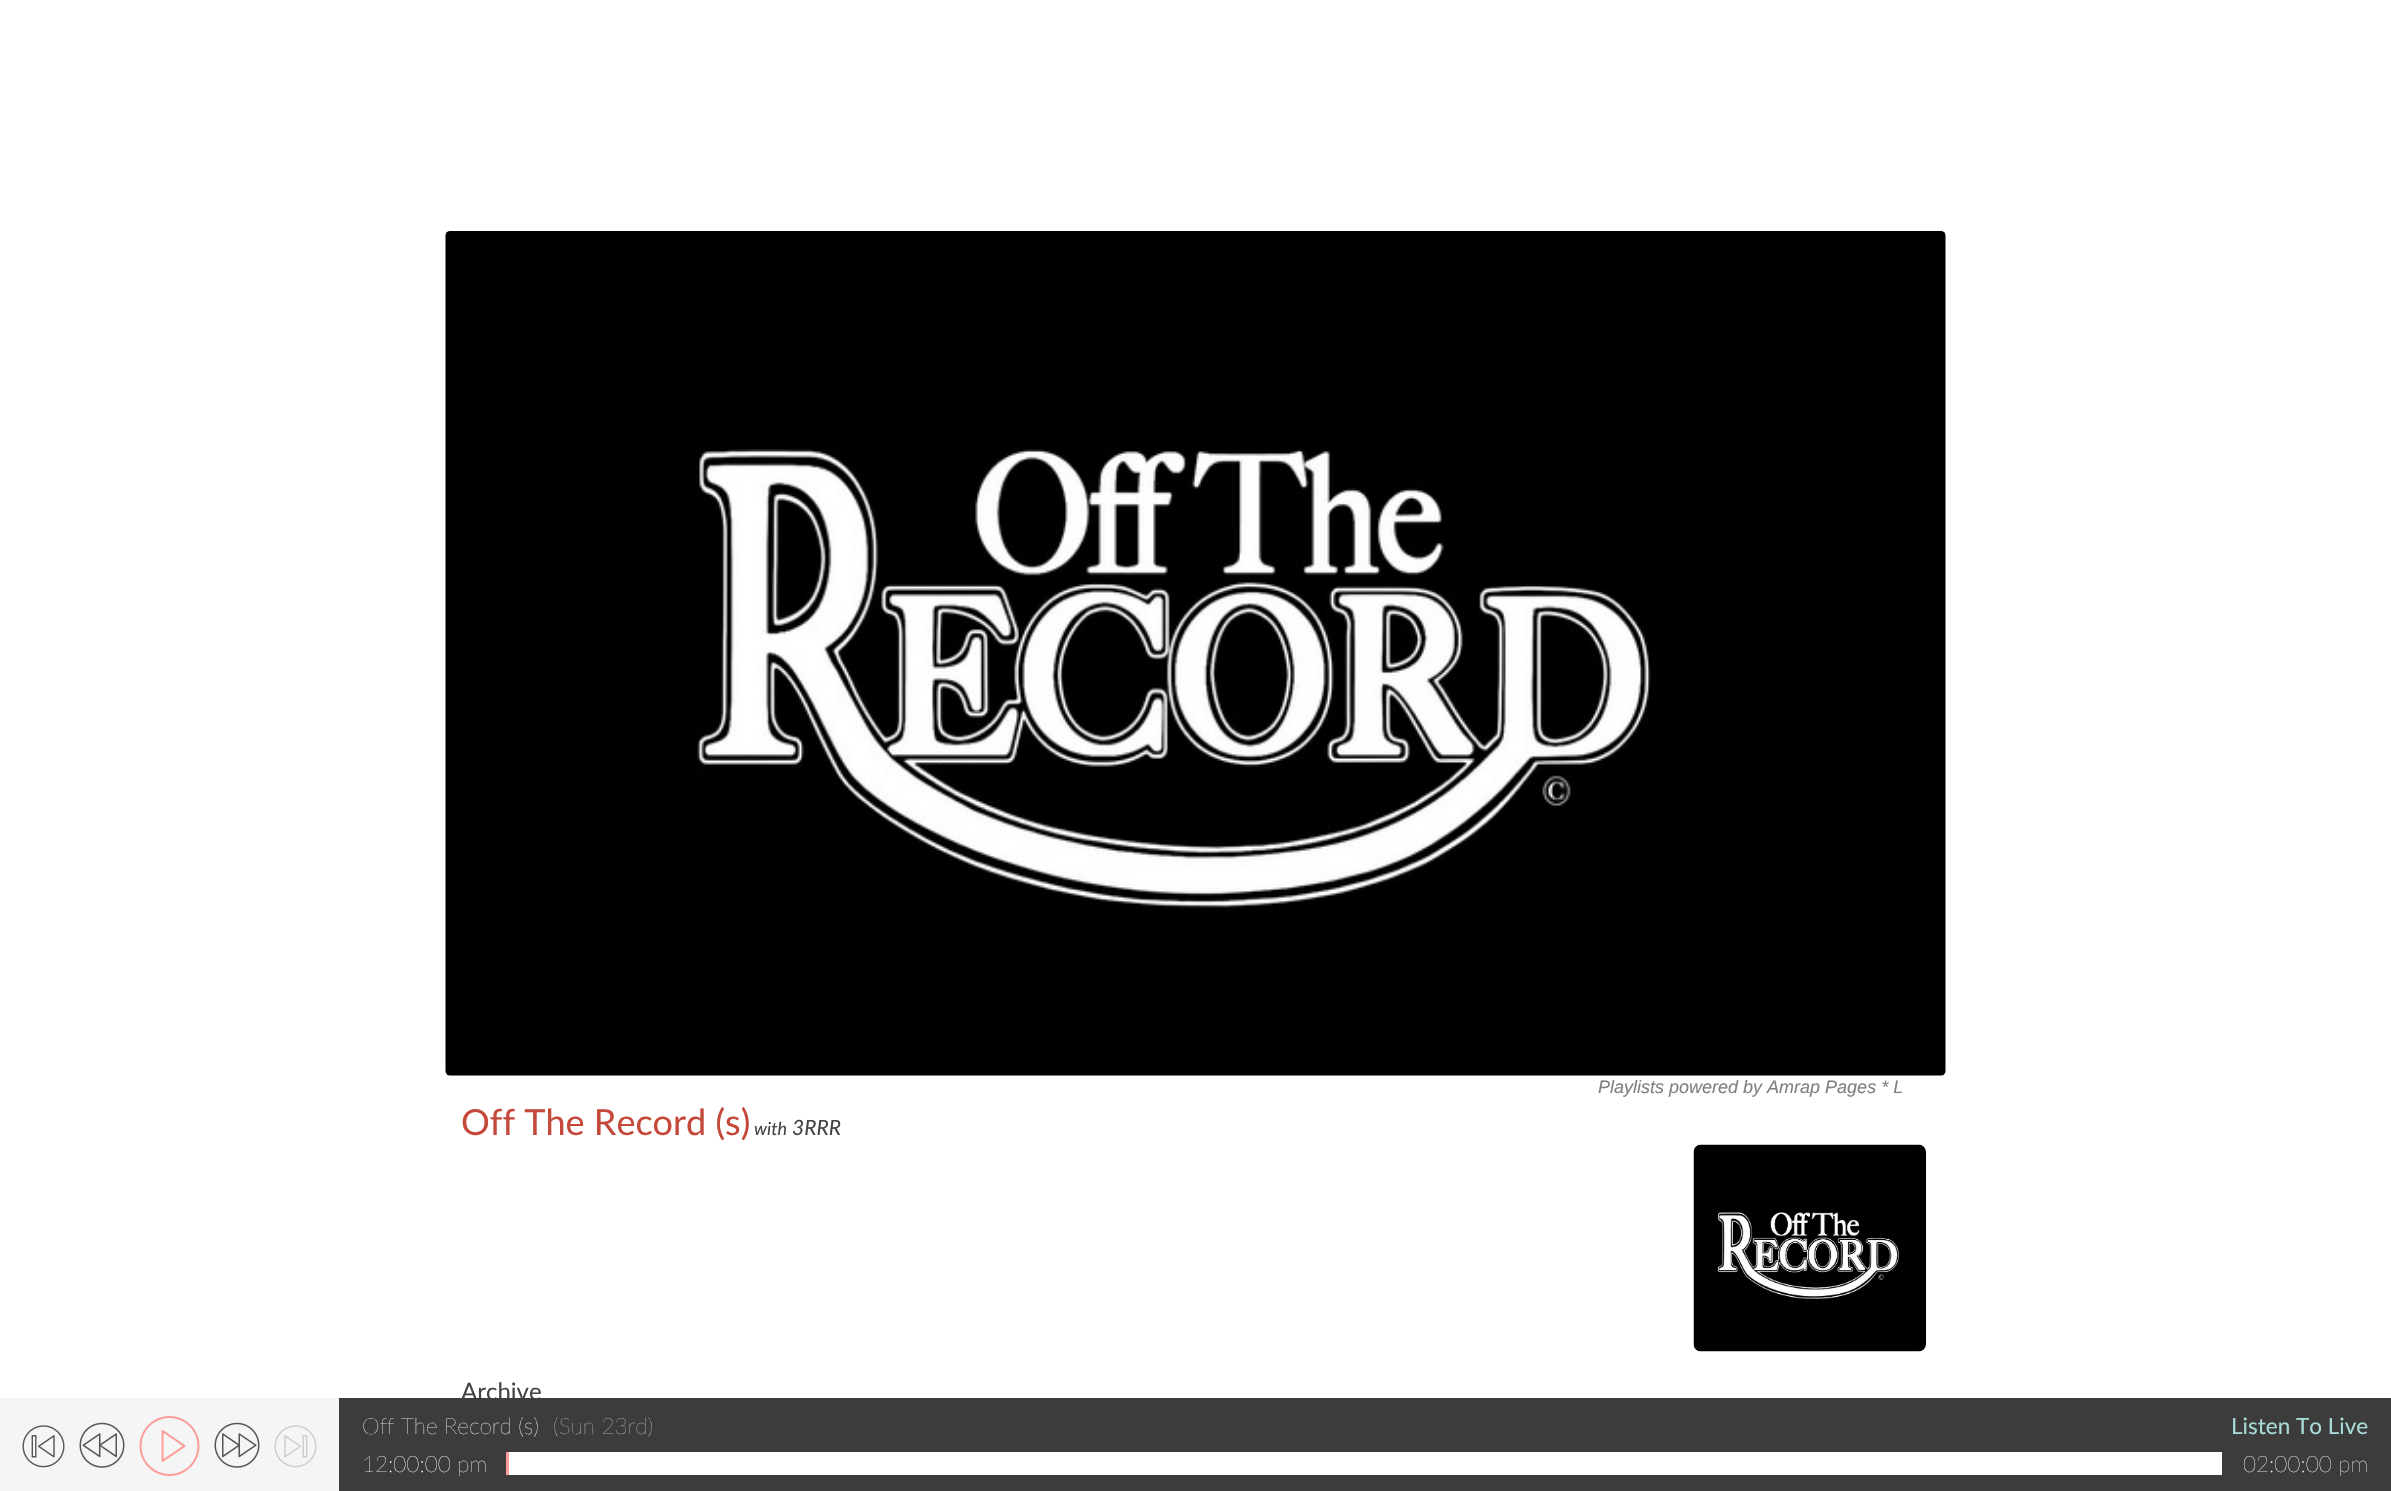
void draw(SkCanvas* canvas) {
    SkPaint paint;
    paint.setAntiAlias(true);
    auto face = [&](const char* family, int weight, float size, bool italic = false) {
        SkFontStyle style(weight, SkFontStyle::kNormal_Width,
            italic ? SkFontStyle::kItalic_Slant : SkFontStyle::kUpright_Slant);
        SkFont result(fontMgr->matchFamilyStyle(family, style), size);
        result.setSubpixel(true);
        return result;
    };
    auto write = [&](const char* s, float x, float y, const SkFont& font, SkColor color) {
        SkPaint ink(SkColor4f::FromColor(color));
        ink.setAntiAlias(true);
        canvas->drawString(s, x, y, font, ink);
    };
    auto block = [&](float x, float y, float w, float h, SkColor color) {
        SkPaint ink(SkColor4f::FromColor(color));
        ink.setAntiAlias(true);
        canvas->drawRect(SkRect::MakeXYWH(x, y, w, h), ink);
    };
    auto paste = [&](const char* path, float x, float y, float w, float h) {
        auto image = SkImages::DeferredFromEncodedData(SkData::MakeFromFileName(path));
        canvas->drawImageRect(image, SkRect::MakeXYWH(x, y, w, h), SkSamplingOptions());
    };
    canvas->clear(SK_ColorWHITE);
    paste("pic1.png", 445, 231, 1501, 845);
    auto kFont1 = face("Liberation Sans", 400, 18, true);
    write("Playlists powered by Amrap Pages * L", 1598, 1093, kFont1, SkColorSetRGB(128, 128, 128));
    auto kFont2 = face("Lato", 400, 36);
    write("Off The Record (s)", 461, 1135, kFont2, SkColorSetRGB(197, 73, 59));
    auto kFont3 = face("Lato", 400, 18, true);
    write("with", 754, 1135, kFont3, SkColorSetRGB(68, 68, 68));
    auto kFont4 = face("Lato", 400, 21, true);
    write("3RRR", 792, 1135, kFont4, SkColorSetRGB(68, 68, 68));
    paste("pic2.png", 1693, 1144, 233, 208);
    auto kFont5 = face("Lato", 400, 24);
    write("Archive", 461, 1400, kFont5, SkColorSetRGB(68, 68, 68));
    block(0, 1398, 339, 93, SkColorSetRGB(245, 245, 245));
    paste("pic3.png", 22, 1425, 43, 43);
    paste("pic4.png", 79, 1422, 46, 46);
    paste("pic5.png", 139, 1416, 61, 60);
    paste("pic6.png", 214, 1422, 46, 46);
    paste("pic7.png", 274, 1425, 43, 43);
    block(339, 1398, 2052, 93, SkColorSetRGB(60, 60, 60));
    auto kFont6 = face("Lato", 200, 22.5f);
    write("Off The Record (s)", 362, 1434, kFont6, SK_ColorWHITE);
    write("(Sun 23rd)", 553, 1434, kFont6, SkColorSetRGB(204, 204, 204));
    auto kFont7 = face("Lato", 400, 22.5f);
    write("Listen To Live", 2231, 1434, kFont7, SkColorSetRGB(167, 219, 216));
    write("12:00:00 pm", 362, 1472, kFont6, SK_ColorWHITE);
    block(509, 1452, 1713, 23, SK_ColorWHITE);
    block(506, 1452, 3, 23, SkColorSetRGB(252, 157, 154));
    write("02:00:00 pm", 2243, 1472, kFont6, SK_ColorWHITE);
}
